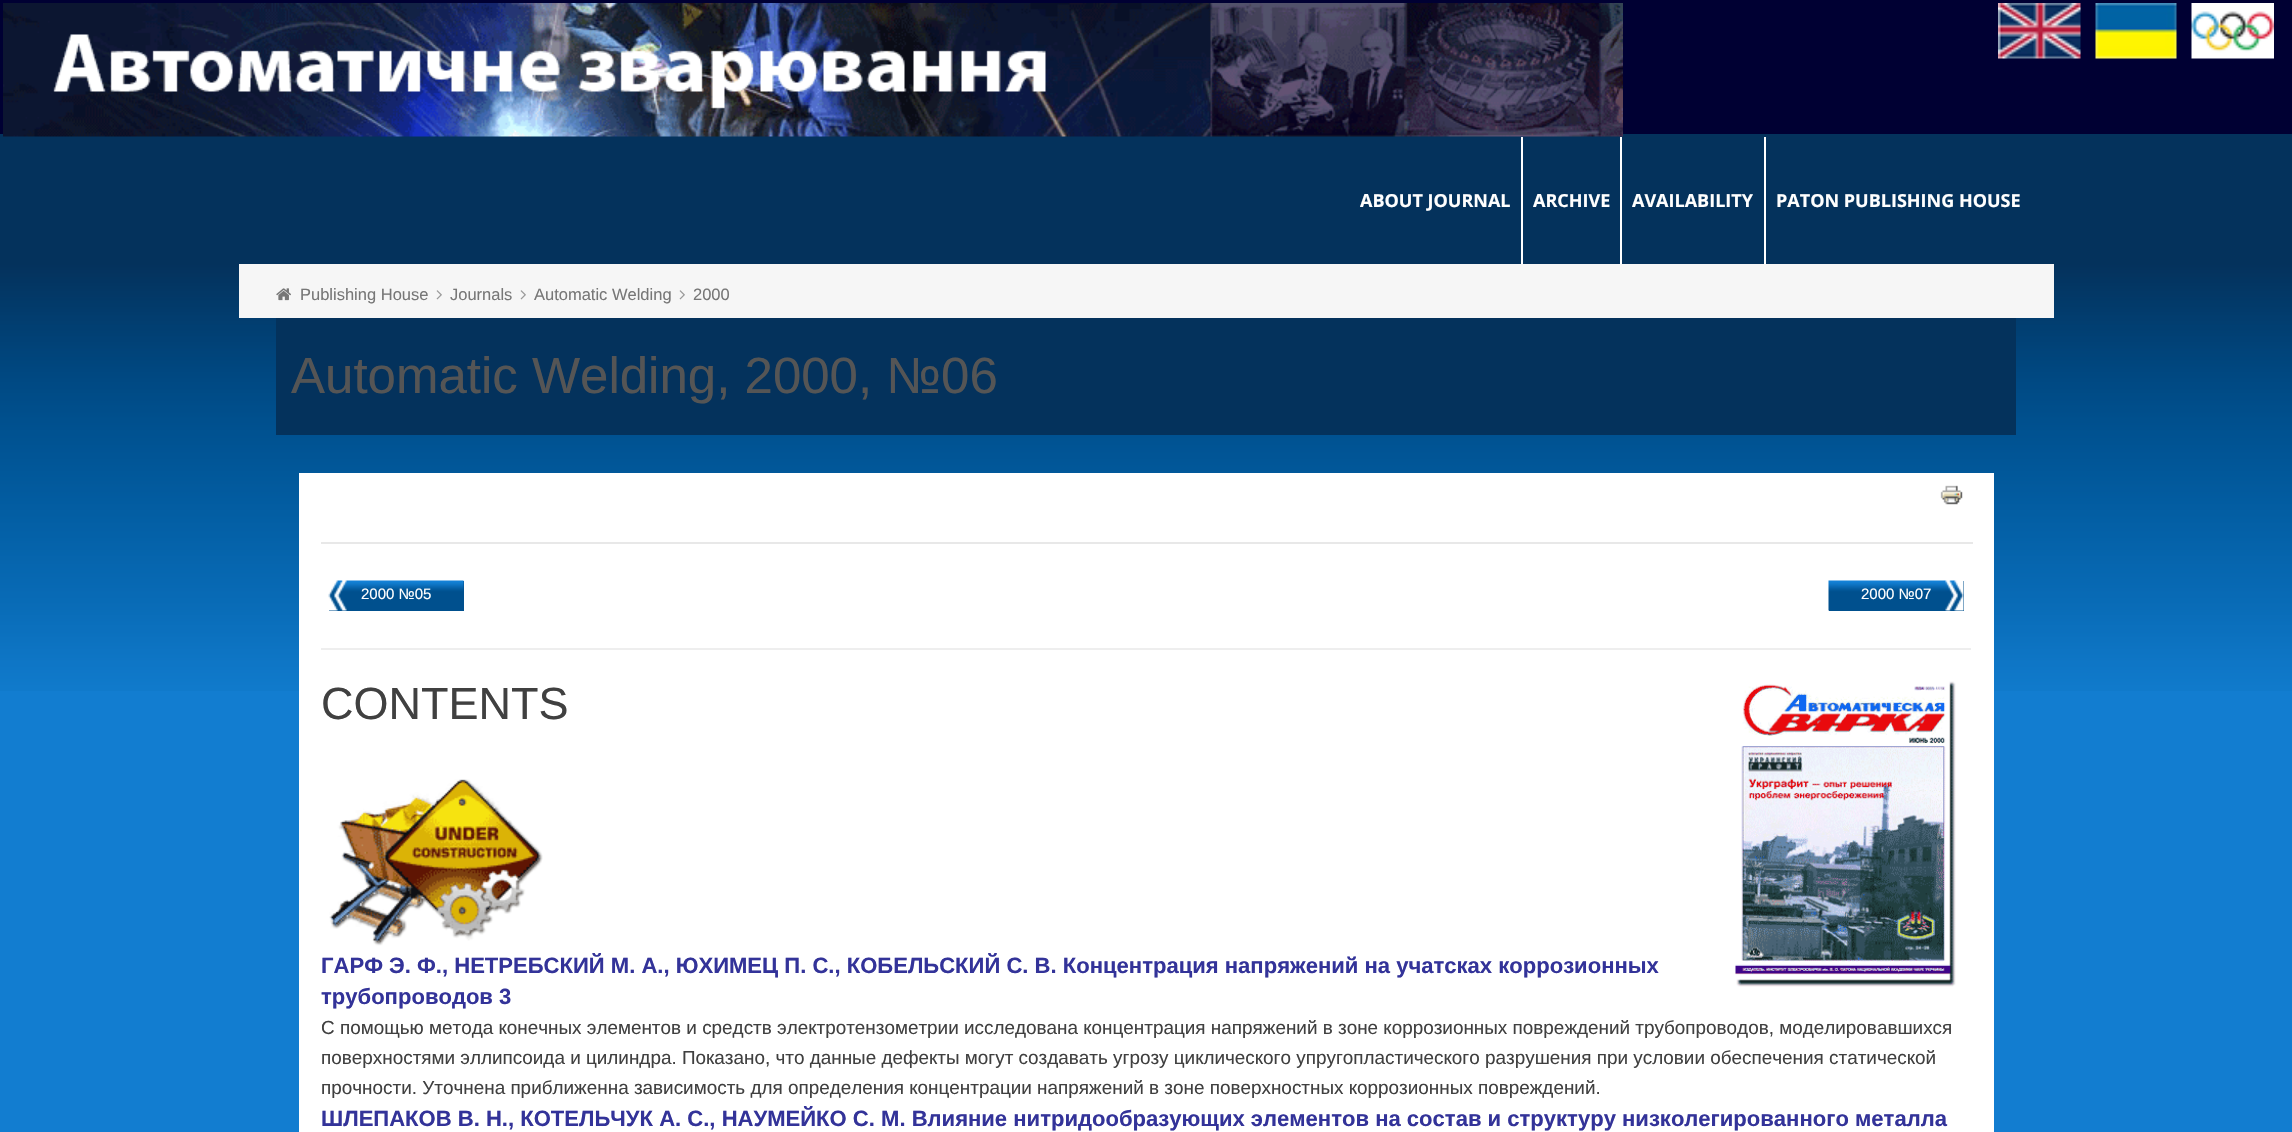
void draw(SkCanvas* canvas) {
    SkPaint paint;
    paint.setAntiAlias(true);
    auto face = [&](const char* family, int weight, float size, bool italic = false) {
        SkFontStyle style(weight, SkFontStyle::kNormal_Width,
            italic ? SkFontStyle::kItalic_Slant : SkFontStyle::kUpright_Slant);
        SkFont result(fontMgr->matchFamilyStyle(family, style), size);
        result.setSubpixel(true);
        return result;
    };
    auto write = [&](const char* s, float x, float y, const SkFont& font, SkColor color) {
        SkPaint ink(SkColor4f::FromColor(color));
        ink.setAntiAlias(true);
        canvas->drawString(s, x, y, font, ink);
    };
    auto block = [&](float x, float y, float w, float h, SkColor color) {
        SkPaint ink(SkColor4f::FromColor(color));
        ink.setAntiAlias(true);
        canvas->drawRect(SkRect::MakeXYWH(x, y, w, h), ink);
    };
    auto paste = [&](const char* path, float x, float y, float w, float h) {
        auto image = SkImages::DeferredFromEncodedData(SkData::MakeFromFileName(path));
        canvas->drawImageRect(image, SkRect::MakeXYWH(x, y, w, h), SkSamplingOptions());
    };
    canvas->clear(SkColorSetRGB(18, 125, 208));
    paste("pic1.png", 0, 264, 2292, 427);
    block(0, 134, 2292, 130, SkColorSetRGB(4, 50, 92));
    block(0, 0, 2292, 134, SkColorSetRGB(0, 0, 51));
    paste("pic2.png", 3, 3, 1620, 134);
    paste("pic3.png", 1998, 3, 83, 56);
    paste("pic4.png", 2095, 3, 82, 56);
    paste("pic5.png", 2191, 3, 83, 56);
    block(1521, 137, 2, 127, SK_ColorWHITE);
    auto kFont1 = face("Open Sans", 700, 18);
    write("ABOUT JOURNAL", 1360, 207, kFont1, SK_ColorWHITE);
    block(1620, 137, 2, 127, SK_ColorWHITE);
    write("ARCHIVE", 1533, 207, kFont1, SK_ColorWHITE);
    block(1764, 137, 2, 127, SK_ColorWHITE);
    write("AVAILABILITY", 1632, 207, kFont1, SK_ColorWHITE);
    write("PATON PUBLISHING HOUSE", 1776, 207, kFont1, SK_ColorWHITE);
    block(239, 264, 1815, 54, SkColorSetRGB(246, 246, 246));
    paste("pic6.png", 276, 288, 15, 13);
    auto kFont2 = face("Liberation Sans", 400, 16.5f);
    write("Publishing House", 300, 300, kFont2, SkColorSetRGB(119, 119, 119));
    paste("pic7.png", 436, 290, 6, 10);
    write("Journals", 450, 300, kFont2, SkColorSetRGB(119, 119, 119));
    paste("pic7.png", 520, 290, 6, 10);
    write("Automatic Welding", 534, 300, kFont2, SkColorSetRGB(119, 119, 119));
    paste("pic7.png", 679, 290, 6, 10);
    write("2000", 693, 300, kFont2, SkColorSetRGB(119, 119, 119));
    block(276, 318, 1740, 117, SkColorSetRGB(4, 50, 92));
    auto kFont3 = face("Liberation Sans", 400, 51);
    write("Automatic Welding, 2000, №06", 291, 393, kFont3, SkColorSetRGB(85, 85, 85));
    block(299, 473, 1695, 659, SK_ColorWHITE);
    paste("pic8.png", 1940, 485, 23, 20);
    block(329, 581, 135, 30, SkColorSetRGB(0, 80, 142));
    paste("pic9.png", 328, 580, 136, 31);
    auto kFont4 = face("Liberation Sans", 400, 15);
    write("2000 №05", 361, 599, kFont4, SK_ColorWHITE);
    block(321, 542, 1652, 2, SkColorSetRGB(232, 232, 232));
    block(1829, 581, 135, 30, SkColorSetRGB(0, 80, 142));
    paste("pic10.png", 1828, 580, 136, 31);
    write("2000 №07", 1861, 599, kFont4, SK_ColorWHITE);
    block(321, 648, 1650, 2, SkColorSetRGB(238, 238, 238));
    auto kFont5 = face("Liberation Sans", 400, 45);
    write("CONTENTS", 321, 719, kFont5, SkColorSetRGB(64, 64, 64));
    paste("pic11.png", 1735, 681, 221, 306);
    paste("pic12.png", 329, 779, 214, 167);
    auto kFont6 = face("Liberation Sans", 700, 22.05f);
    write("ГАРФ Э. Ф., НЕТРЕБСКИЙ М. А., ЮХИМЕЦ П. С., КОБЕЛЬСКИЙ С. В. Концентрация напряжений на учатсках коррозионных", 321, 973, kFont6, SkColorSetRGB(51, 51, 153));
    write("трубопроводов 3", 321, 1004, kFont6, SkColorSetRGB(51, 51, 153));
    auto kFont7 = face("Liberation Sans", 400, 18.9f);
    write("С помощью метода конечных элементов и средств электротензометрии исследована концентрация напряжений в зоне коррозионных повреждений трубопроводов, моделировавшихся", 321, 1034, kFont7, SkColorSetRGB(64, 64, 64));
    write("поверхностями эллипсоида и цилиндра. Показано, что данные дефекты могут создавать угрозу циклического упругопластического разрушения при условии обеспечения статической", 321, 1064, kFont7, SkColorSetRGB(64, 64, 64));
    write("прочности. Уточнена приближенна зависимость для определения концентрации напряжений в зоне поверхностных коррозионных повреждений.", 321, 1094, kFont7, SkColorSetRGB(64, 64, 64));
    write("ШЛЕПАКОВ В. Н., КОТЕЛЬЧУК А. С., НАУМЕЙКО С. М. Влияние нитридообразующих элементов на состав и структуру низколегированного металла", 321, 1126, kFont6, SkColorSetRGB(51, 51, 153));
}
